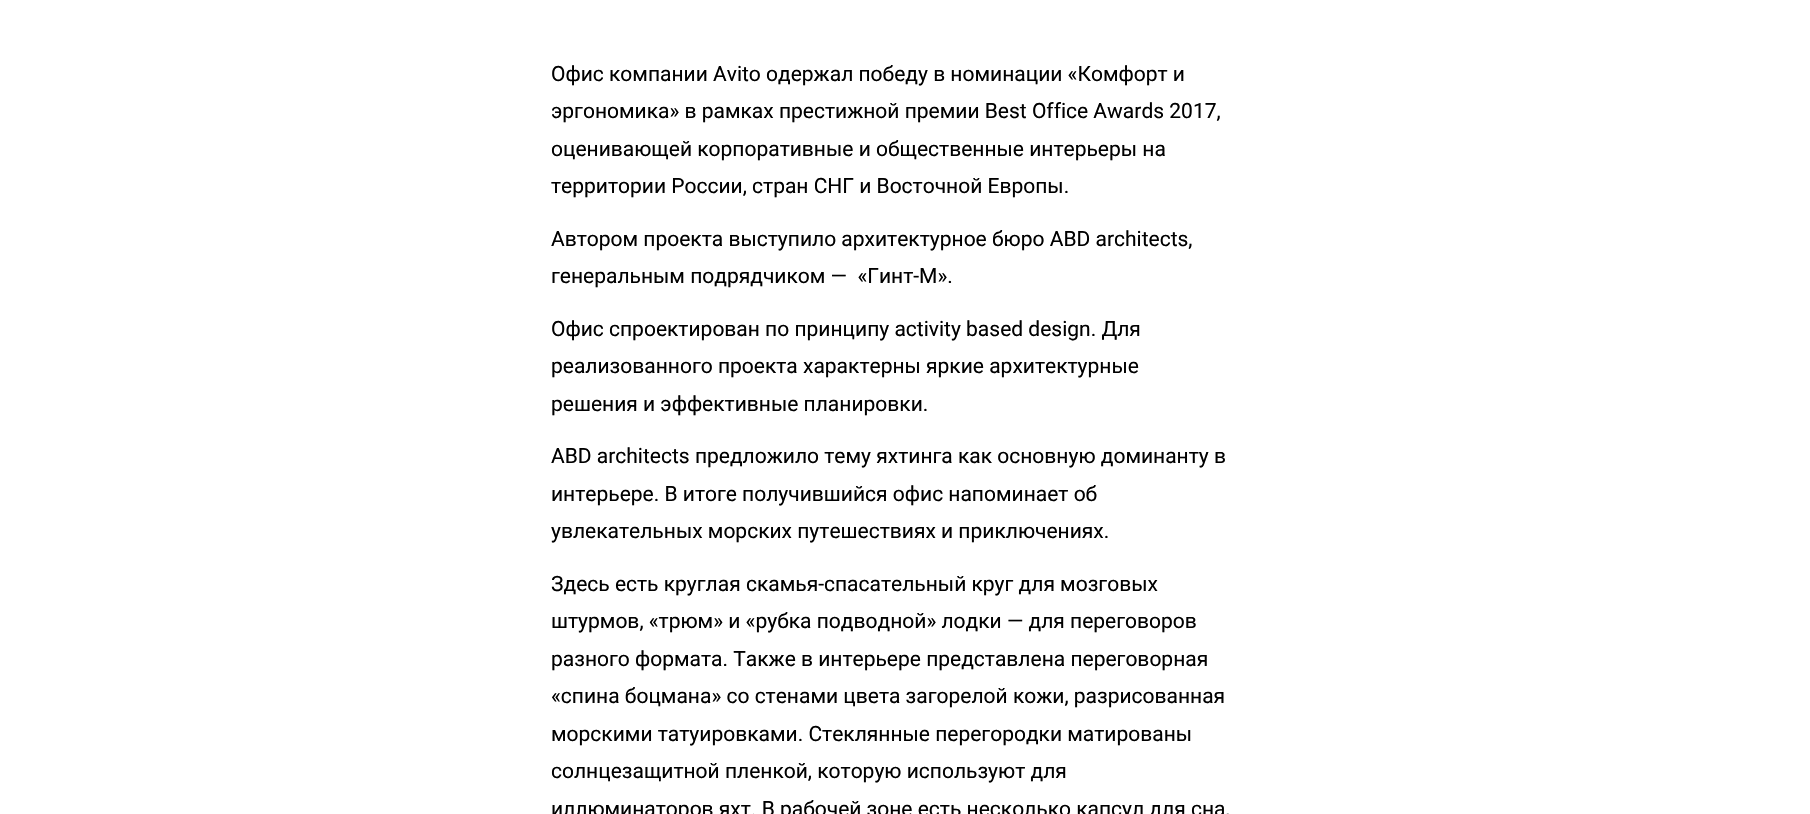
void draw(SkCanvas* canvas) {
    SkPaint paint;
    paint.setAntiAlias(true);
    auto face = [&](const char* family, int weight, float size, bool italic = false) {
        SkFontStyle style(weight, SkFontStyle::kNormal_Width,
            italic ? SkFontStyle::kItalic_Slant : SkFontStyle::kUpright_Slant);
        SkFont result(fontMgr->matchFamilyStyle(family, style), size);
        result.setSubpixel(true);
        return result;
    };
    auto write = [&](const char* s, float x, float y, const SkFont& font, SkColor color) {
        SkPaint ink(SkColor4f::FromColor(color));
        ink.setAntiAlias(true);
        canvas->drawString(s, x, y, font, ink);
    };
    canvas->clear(SK_ColorWHITE);
    auto kFont1 = face("Roboto", 400, 21);
    write("Офис компании Avito одержал победу в номинации «Комфорт и", 551, 81, kFont1, SK_ColorBLACK);
    write("эргономика» в рамках престижной премии Best Office Awards 2017,", 551, 118, kFont1, SK_ColorBLACK);
    write("оценивающей корпоративные и общественные интерьеры на", 551, 156, kFont1, SK_ColorBLACK);
    write("территории России, стран СНГ и Восточной Европы.", 551, 193, kFont1, SK_ColorBLACK);
    write("Автором проекта выступило архитектурное бюро ABD architects,", 551, 246, kFont1, SK_ColorBLACK);
    write("генеральным подрядчиком —  «Гинт-М».", 551, 283, kFont1, SK_ColorBLACK);
    write("Офис спроектирован по принципу activity based design. Для", 551, 336, kFont1, SK_ColorBLACK);
    write("реализованного проекта характерны яркие архитектурные", 551, 373, kFont1, SK_ColorBLACK);
    write("решения и эффективные планировки.", 551, 411, kFont1, SK_ColorBLACK);
    write("ABD architects предложило тему яхтинга как основную доминанту в", 551, 463, kFont1, SK_ColorBLACK);
    write("интерьере. В итоге получившийся офис напоминает об", 551, 501, kFont1, SK_ColorBLACK);
    write("увлекательных морских путешествиях и приключениях.", 551, 538, kFont1, SK_ColorBLACK);
    write("Здесь есть круглая скамья-спасательный круг для мозговых", 551, 591, kFont1, SK_ColorBLACK);
    write("штурмов, «трюм» и «рубка подводной» лодки — для переговоров", 551, 628, kFont1, SK_ColorBLACK);
    write("разного формата. Также в интерьере представлена переговорная", 551, 666, kFont1, SK_ColorBLACK);
    write("«спина боцмана» со стенами цвета загорелой кожи, разрисованная", 551, 703, kFont1, SK_ColorBLACK);
    write("морскими татуировками. Стеклянные перегородки матированы", 551, 741, kFont1, SK_ColorBLACK);
    write("солнцезащитной пленкой, которую используют для", 551, 778, kFont1, SK_ColorBLACK);
    write("иллюминаторов яхт. В рабочей зоне есть несколько капсул для сна,", 551, 816, kFont1, SK_ColorBLACK);
}
